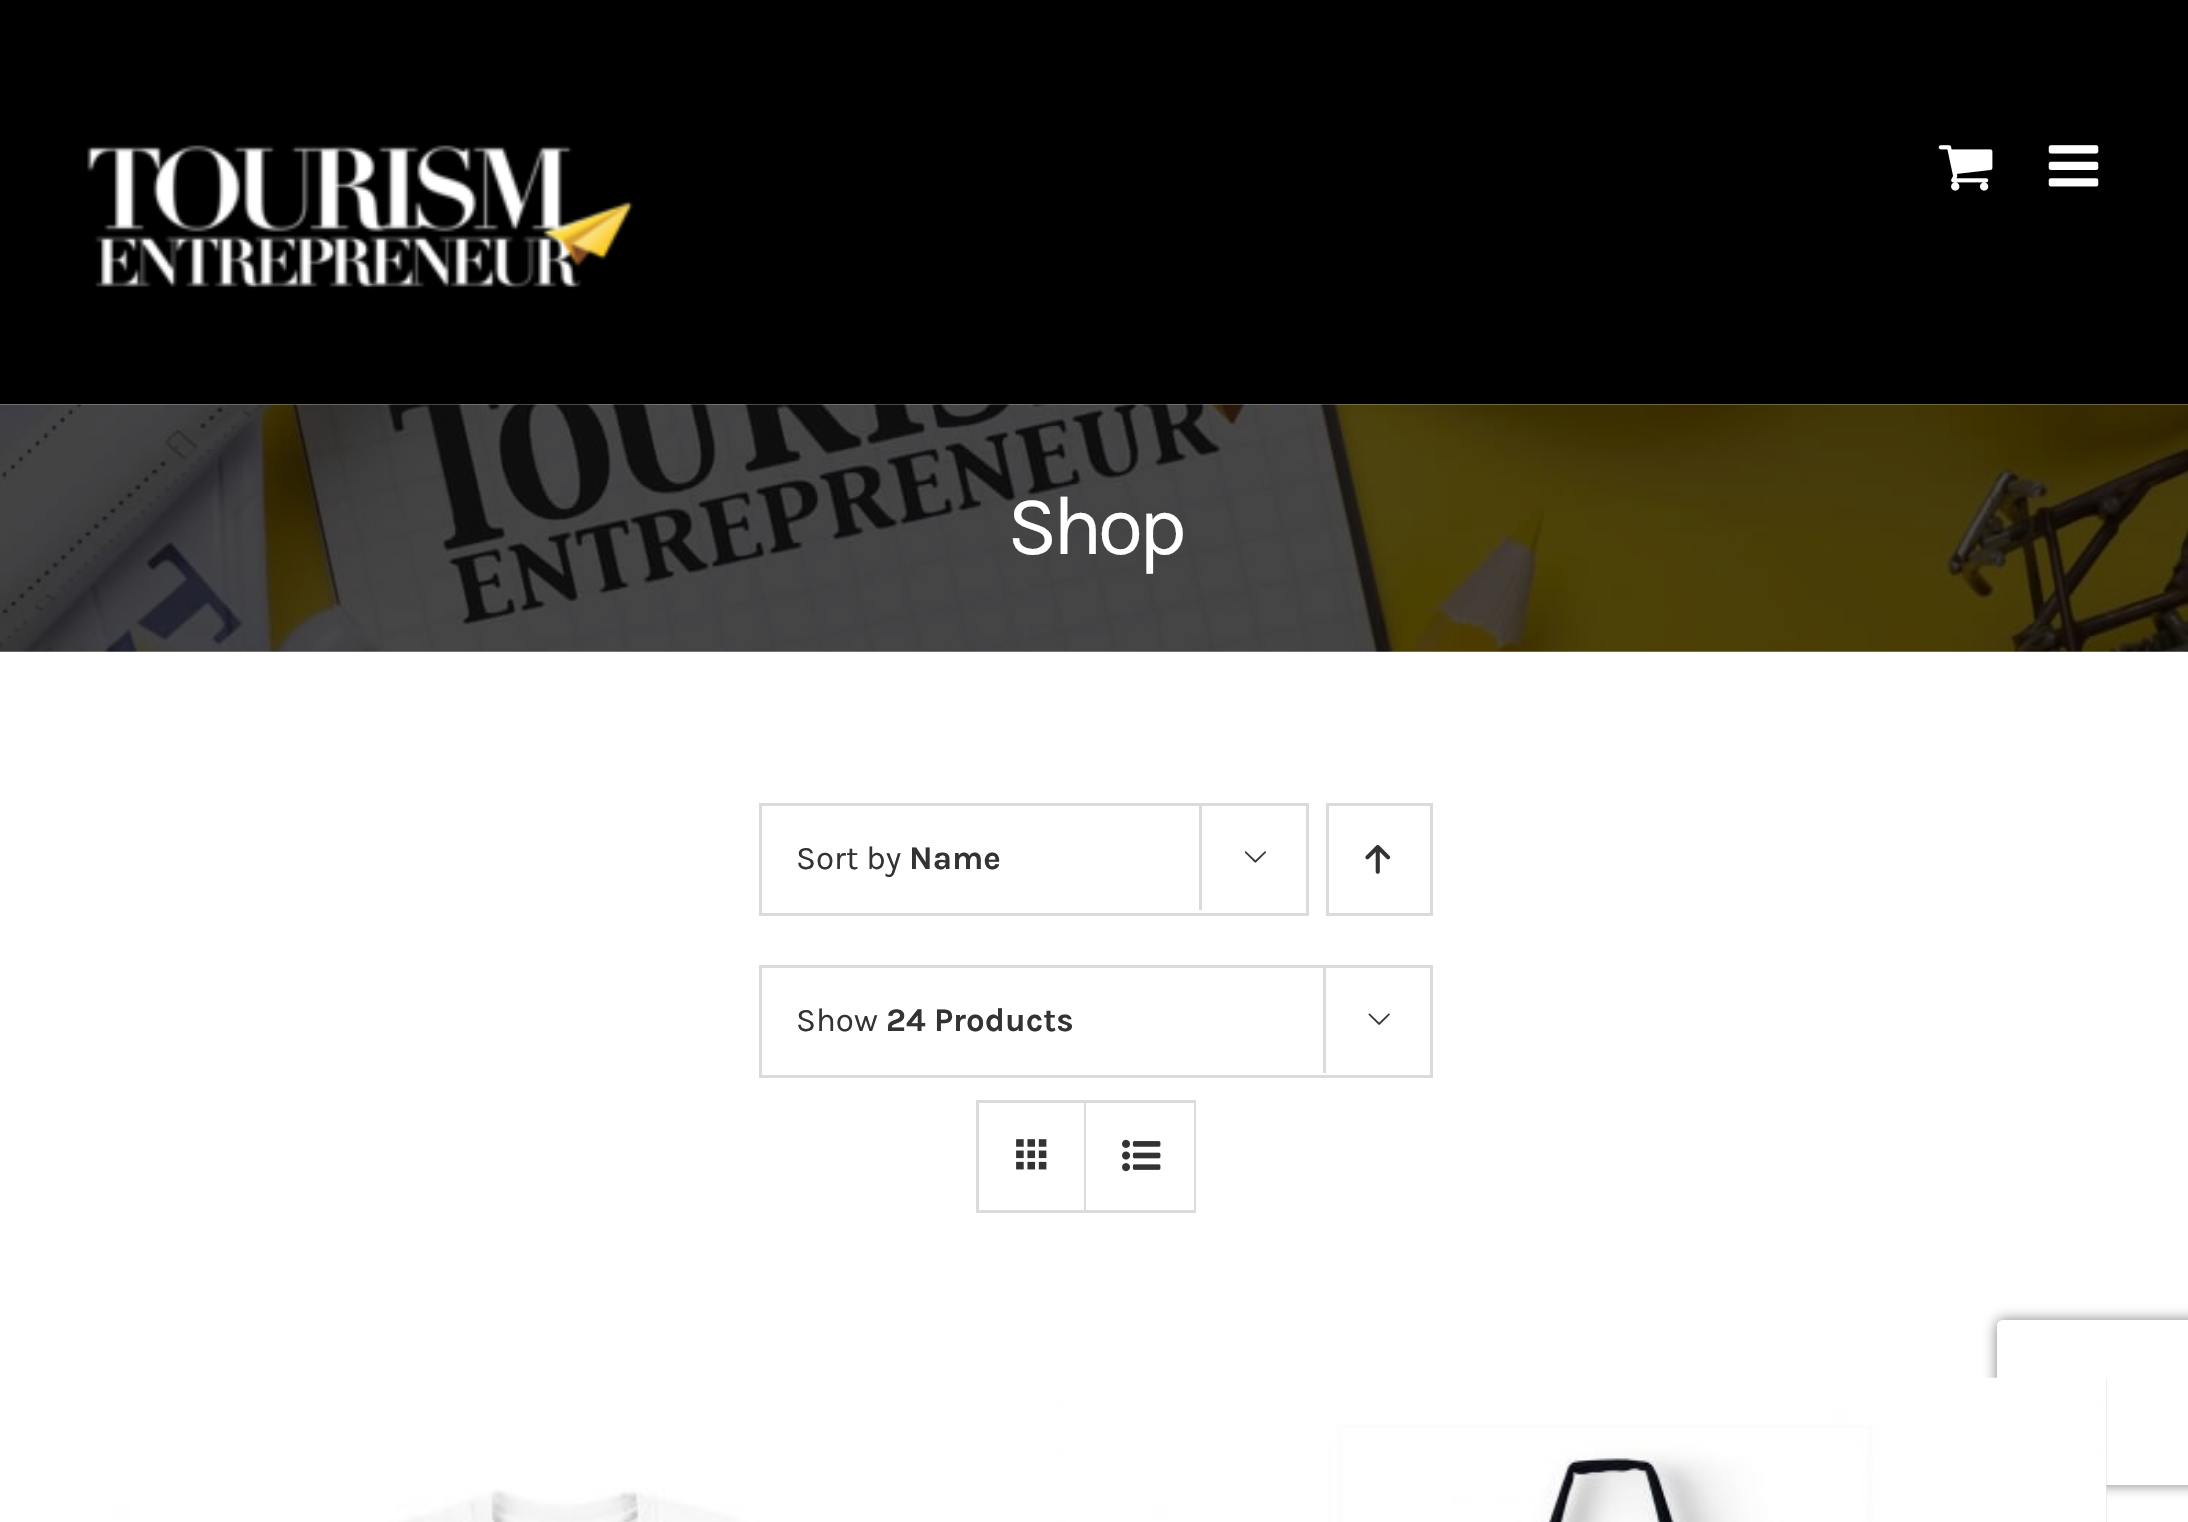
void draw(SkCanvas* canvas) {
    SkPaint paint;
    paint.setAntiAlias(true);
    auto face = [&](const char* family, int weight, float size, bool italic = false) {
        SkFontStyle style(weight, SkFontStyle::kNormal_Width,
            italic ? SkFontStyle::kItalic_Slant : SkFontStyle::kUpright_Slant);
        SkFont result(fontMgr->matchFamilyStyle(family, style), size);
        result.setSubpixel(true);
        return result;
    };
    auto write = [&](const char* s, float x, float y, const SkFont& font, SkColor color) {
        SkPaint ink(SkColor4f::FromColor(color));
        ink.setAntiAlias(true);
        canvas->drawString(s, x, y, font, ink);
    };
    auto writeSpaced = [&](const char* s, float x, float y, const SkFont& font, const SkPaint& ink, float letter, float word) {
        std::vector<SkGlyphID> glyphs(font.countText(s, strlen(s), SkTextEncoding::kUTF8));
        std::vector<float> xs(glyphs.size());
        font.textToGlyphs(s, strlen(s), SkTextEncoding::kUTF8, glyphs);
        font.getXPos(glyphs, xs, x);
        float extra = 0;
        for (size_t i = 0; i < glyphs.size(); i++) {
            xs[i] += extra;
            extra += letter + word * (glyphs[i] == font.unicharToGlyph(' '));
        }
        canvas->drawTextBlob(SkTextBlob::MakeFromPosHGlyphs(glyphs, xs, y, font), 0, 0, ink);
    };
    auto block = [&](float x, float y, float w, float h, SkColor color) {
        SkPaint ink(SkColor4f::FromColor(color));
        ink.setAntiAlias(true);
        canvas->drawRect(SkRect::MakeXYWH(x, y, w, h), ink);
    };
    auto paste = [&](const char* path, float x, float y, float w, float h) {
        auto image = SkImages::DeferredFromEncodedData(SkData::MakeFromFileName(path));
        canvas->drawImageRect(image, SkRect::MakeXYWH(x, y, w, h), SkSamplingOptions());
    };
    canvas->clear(SK_ColorWHITE);
    block(0, 0, 2188, 404, SK_ColorBLACK);
    paste("pic1.png", 87, 145, 546, 144);
    paste("pic2.png", 1938, 145, 55, 46);
    paste("pic3.png", 2048, 145, 51, 42);
    paste("pic4.png", 0, 404, 2188, 248);
    auto kFont1 = face("Karla", 400, 84);
    paint.setColor(SK_ColorWHITE);
    writeSpaced("Shop", 1007, 554, kFont1, paint, -5.5f, 0);
    paint.setStyle(SkPaint::kStroke_Style);
    paint.setStrokeWidth(3);
    paint.setColor(SkColorSetRGB(219, 219, 219));
    canvas->drawRect(SkRect::MakeXYWH(760.5f, 804.5f, 547, 110), paint);
    auto kFont2 = face("Karla", 400, 33);
    write("Sort by", 796, 869, kFont2, SkColorSetRGB(51, 51, 51));
    auto kFont3 = face("Karla", 700, 33);
    write("Name", 909, 869, kFont3, SkColorSetRGB(51, 51, 51));
    block(1199, 803, 3, 107, SkColorSetRGB(219, 219, 219));
    paste("pic5.png", 1244, 851, 22, 12);
    canvas->drawRect(SkRect::MakeXYWH(1327.5f, 804.5f, 104, 110), paint);
    paste("pic6.png", 1365, 845, 26, 29);
    canvas->drawRect(SkRect::MakeXYWH(760.5f, 966.5f, 671, 110), paint);
    write("Show", 796, 1031, kFont2, SkColorSetRGB(51, 51, 51));
    write("24 Products", 886, 1031, kFont3, SkColorSetRGB(51, 51, 51));
    block(1323, 965, 3, 108, SkColorSetRGB(219, 219, 219));
    paste("pic7.png", 1368, 1013, 22, 12);
    canvas->drawRect(SkRect::MakeXYWH(977.5f, 1101.5f, 217, 110), paint);
    block(1084, 1103, 2, 107, SkColorSetRGB(219, 219, 219));
    paste("pic8.png", 1016, 1139, 31, 31);
    block(1193, 1103, 1, 107, SK_ColorWHITE);
    paste("pic9.png", 1122, 1139, 39, 33);
    paste("pic10.png", 83, 1378, 984, 144);
    block(2106, 1378, 1, 144, SkColorSetRGB(224, 222, 222));
    canvas->save();
    canvas->clipPath(SkPathBuilder(SkPathFillType::kEvenOdd).moveTo(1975, 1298).lineTo(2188, 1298).lineTo(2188, 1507).lineTo(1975, 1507).close().moveTo(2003, 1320).lineTo(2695, 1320).cubicTo(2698.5f, 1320, 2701, 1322.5f, 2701, 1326).lineTo(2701, 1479).cubicTo(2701, 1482.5f, 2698.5f, 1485, 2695, 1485).lineTo(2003, 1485).cubicTo(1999.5f, 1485, 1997, 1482.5f, 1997, 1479).lineTo(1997, 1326).cubicTo(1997, 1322.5f, 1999.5f, 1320, 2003, 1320).close().detach(), true);
    paint.setStyle(SkPaint::kFill_Style);
    paint.setColor(SkColorSetRGB(128, 128, 128));
    paint.setMaskFilter(SkMaskFilter::MakeBlur(kNormal_SkBlurStyle, 7));
    canvas->drawRoundRect(SkRect::MakeXYWH(1997, 1320, 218, 165), 6, 6, paint);
    paint.setMaskFilter(nullptr);
    canvas->restore();
    paste("pic11.png", 1122, 1377, 985, 145);
}
